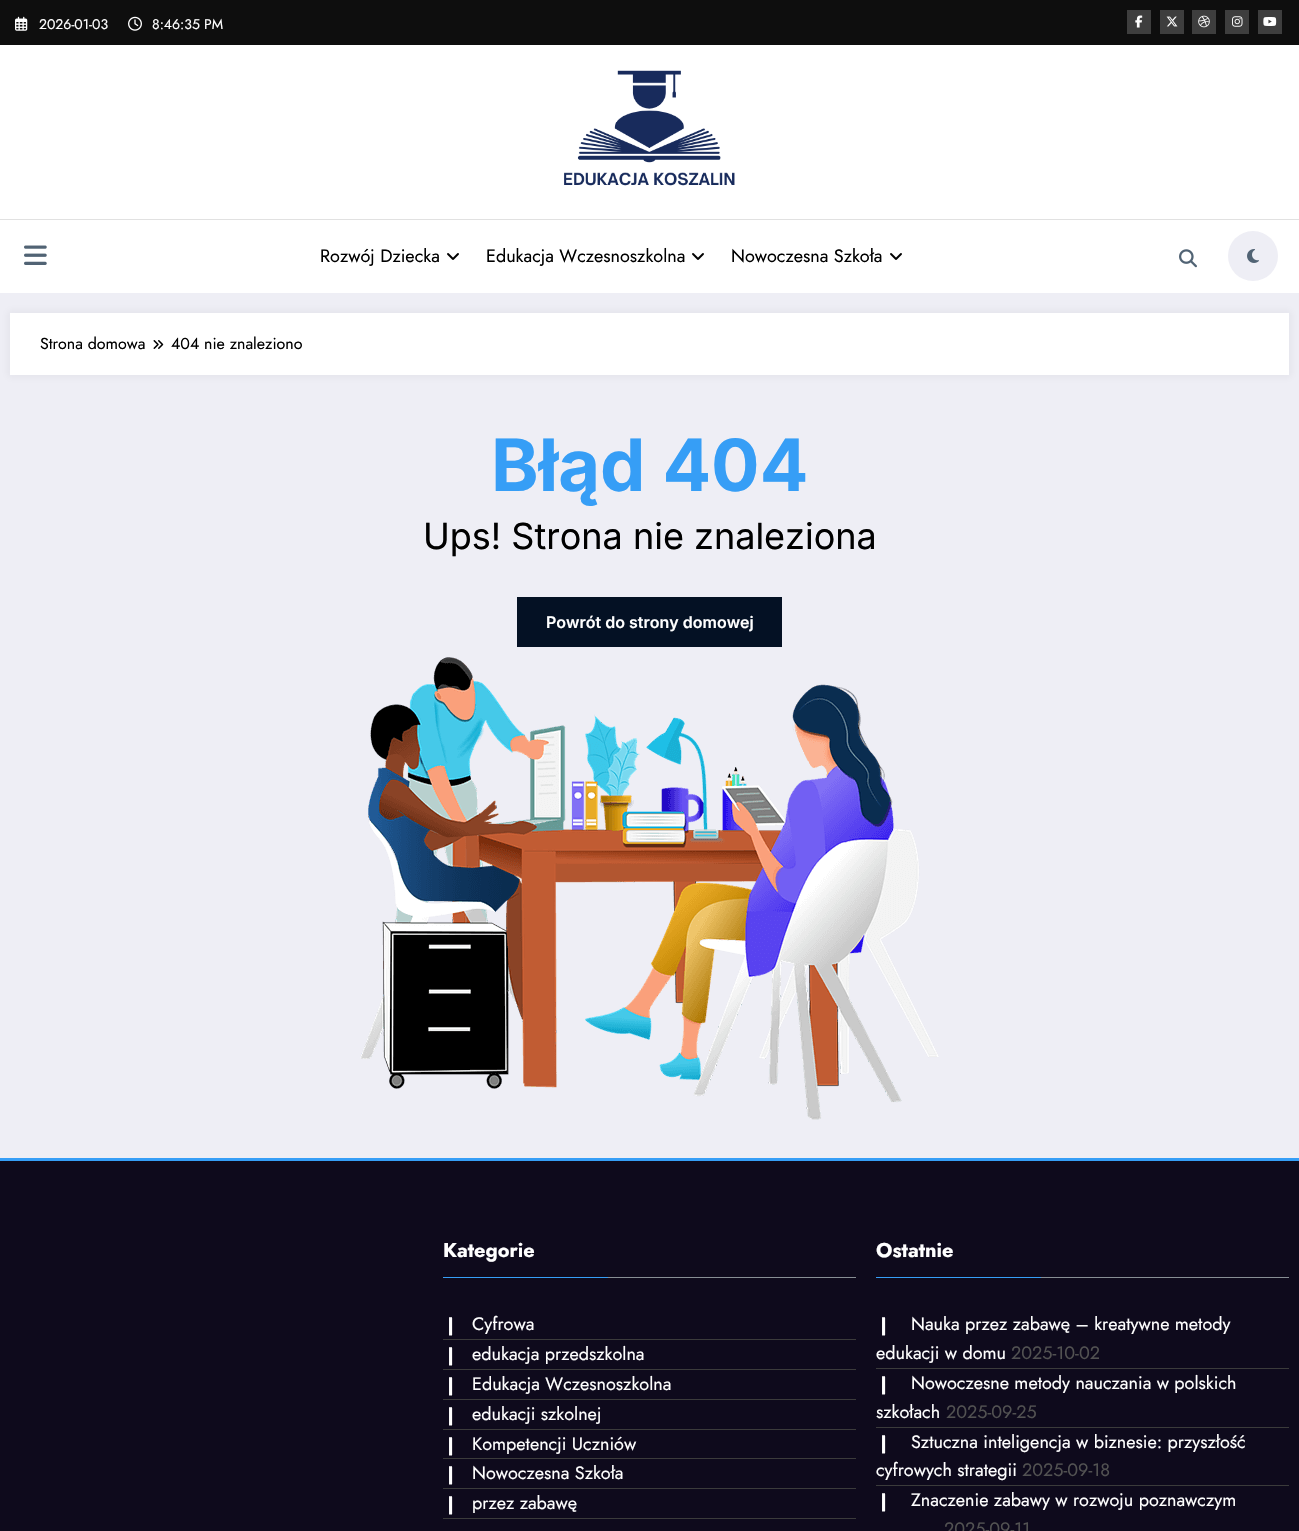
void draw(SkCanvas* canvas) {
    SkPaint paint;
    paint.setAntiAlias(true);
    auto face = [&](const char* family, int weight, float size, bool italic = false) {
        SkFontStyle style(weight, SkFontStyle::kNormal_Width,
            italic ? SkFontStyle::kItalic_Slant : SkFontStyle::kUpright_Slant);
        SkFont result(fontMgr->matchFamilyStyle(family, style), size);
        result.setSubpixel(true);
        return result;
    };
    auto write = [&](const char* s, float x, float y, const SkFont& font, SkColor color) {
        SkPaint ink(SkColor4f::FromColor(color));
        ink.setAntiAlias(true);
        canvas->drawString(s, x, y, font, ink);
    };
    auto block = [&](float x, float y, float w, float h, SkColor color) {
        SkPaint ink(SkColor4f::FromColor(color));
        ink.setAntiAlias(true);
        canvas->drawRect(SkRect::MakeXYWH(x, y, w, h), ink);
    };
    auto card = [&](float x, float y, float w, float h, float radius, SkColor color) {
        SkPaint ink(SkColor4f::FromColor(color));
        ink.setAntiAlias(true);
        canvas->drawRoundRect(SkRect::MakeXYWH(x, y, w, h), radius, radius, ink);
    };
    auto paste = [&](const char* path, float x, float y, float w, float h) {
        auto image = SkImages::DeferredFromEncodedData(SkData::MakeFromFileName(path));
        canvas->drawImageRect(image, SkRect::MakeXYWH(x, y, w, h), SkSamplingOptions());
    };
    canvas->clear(SkColorSetRGB(238, 238, 245));
    block(0, 0, 1299, 45, SkColorSetRGB(14, 14, 14));
    paste("pic1.png", 15, 16, 13, 15);
    auto kFont1 = face("Jost", 400, 14);
    write("2026-01-03", 39, 29, kFont1, SK_ColorWHITE);
    paste("pic2.png", 128, 16, 14, 15);
    write("8:46:35 PM", 152, 29, kFont1, SK_ColorWHITE);
    block(1127, 10, 24, 24, SkColorSetRGB(62, 62, 62));
    paste("pic3.png", 1135, 15, 8, 13);
    block(1160, 10, 24, 24, SkColorSetRGB(62, 62, 62));
    paste("pic4.png", 1166, 16, 12, 11);
    block(1192, 10, 24, 24, SkColorSetRGB(62, 62, 62));
    paste("pic5.png", 1198, 15, 12, 13);
    block(1225, 10, 24, 24, SkColorSetRGB(62, 62, 62));
    paste("pic6.png", 1232, 16, 11, 11);
    block(1258, 10, 24, 24, SkColorSetRGB(62, 62, 62));
    paste("pic7.png", 1263, 17, 14, 9);
    block(0, 45, 1299, 248, SK_ColorWHITE);
    paste("pic8.png", 564, 70, 171, 116);
    block(0, 219, 1299, 1, SkColorSetRGB(225, 225, 225));
    paste("pic9.png", 24, 245, 23, 20);
    auto kFont2 = face("Jost", 400, 18);
    write("Rozwój Dziecka", 320, 262, kFont2, SK_ColorBLACK);
    paste("pic10.png", 447, 253, 12, 7);
    write("Edukacja Wczesnoszkolna", 486, 262, kFont2, SK_ColorBLACK);
    paste("pic10.png", 692, 253, 12, 7);
    write("Nowoczesna Szkoła", 731, 262, kFont2, SK_ColorBLACK);
    paste("pic10.png", 890, 253, 12, 7);
    paste("pic11.png", 1179, 249, 18, 19);
    paint.setColor(SkColorSetRGB(238, 238, 245));
    canvas->drawCircle(1253, 256, 25, paint);
    paste("pic12.png", 1247, 249, 12, 14);
    paint.setColor(SkColorSetARGB(13, 23, 23, 35));
    paint.setMaskFilter(SkMaskFilter::MakeBlur(kNormal_SkBlurStyle, 4));
    canvas->drawRect(SkRect::MakeXYWH(8, 311, 1283, 66), paint);
    paint.setMaskFilter(nullptr);
    block(10, 313, 1279, 62, SK_ColorWHITE);
    auto kFont3 = face("Jost", 400, 16);
    write("Strona domowa", 40, 349, kFont3, SK_ColorBLACK);
    paste("pic13.png", 153, 340, 11, 9);
    write("404 nie znaleziono", 171, 349, kFont3, SK_ColorBLACK);
    auto kFont4 = face("Inter", 700, 72);
    write("Błąd 404", 491, 491, kFont4, SkColorSetRGB(54, 158, 246));
    auto kFont5 = face("Inter", 400, 36);
    write("Ups! Strona nie znaleziona", 423, 549, kFont5, SK_ColorBLACK);
    block(517, 597, 265, 50, SkColorSetRGB(4, 17, 36));
    auto kFont6 = face("Inter", 600, 16);
    write("Powrót do strony domowej", 546, 628, kFont6, SK_ColorWHITE);
    paste("pic14.png", 360, 657, 579, 463);
    block(0, 1158, 1299, 3, SkColorSetRGB(54, 158, 246));
    block(0, 1161, 1299, 370, SkColorSetRGB(14, 10, 28));
    block(443, 1277, 413, 1, SkColorSetRGB(135, 142, 148));
    auto kFont7 = face("Jost", 700, 20);
    write("Kategorie", 443, 1257, kFont7, SK_ColorWHITE);
    card(443, 1277, 165, 1, 0.5f, SkColorSetRGB(54, 158, 246));
    block(443, 1339, 413, 1, SkColorSetRGB(59, 59, 59));
    auto kFont8 = face("DejaVu Sans", 400, 18);
    write("❙", 443, 1331, kFont8, SK_ColorWHITE);
    write("Cyfrowa", 472, 1330, kFont2, SK_ColorWHITE);
    block(443, 1369, 413, 1, SkColorSetRGB(59, 59, 59));
    write("❙", 443, 1361, kFont8, SK_ColorWHITE);
    write("edukacja przedszkolna", 472, 1360, kFont2, SK_ColorWHITE);
    block(443, 1399, 413, 1, SkColorSetRGB(59, 59, 59));
    write("❙", 443, 1391, kFont8, SK_ColorWHITE);
    write("Edukacja Wczesnoszkolna", 472, 1390, kFont2, SK_ColorWHITE);
    block(443, 1429, 413, 1, SkColorSetRGB(59, 59, 59));
    write("❙", 443, 1421, kFont8, SK_ColorWHITE);
    write("edukacji szkolnej", 472, 1420, kFont2, SK_ColorWHITE);
    block(443, 1458, 413, 1, SkColorSetRGB(59, 59, 59));
    write("❙", 443, 1451, kFont8, SK_ColorWHITE);
    write("Kompetencji Uczniów", 472, 1450, kFont2, SK_ColorWHITE);
    block(443, 1488, 413, 1, SkColorSetRGB(59, 59, 59));
    write("❙", 443, 1480, kFont8, SK_ColorWHITE);
    write("Nowoczesna Szkoła", 472, 1479, kFont2, SK_ColorWHITE);
    block(443, 1518, 413, 1, SkColorSetRGB(59, 59, 59));
    write("❙", 443, 1510, kFont8, SK_ColorWHITE);
    write("przez zabawę", 472, 1509, kFont2, SK_ColorWHITE);
    block(876, 1277, 413, 1, SkColorSetRGB(135, 142, 148));
    write("Ostatnie", 876, 1257, kFont7, SK_ColorWHITE);
    card(876, 1277, 165, 1, 0.5f, SkColorSetRGB(54, 158, 246));
    block(876, 1368, 413, 1, SkColorSetRGB(59, 59, 59));
    write("❙", 876, 1331, kFont8, SK_ColorWHITE);
    write("Nauka przez zabawę – kreatywne metody", 911, 1330, kFont2, SK_ColorWHITE);
    write("edukacji w domu", 876, 1359, kFont2, SK_ColorWHITE);
    write("2025-10-02", 1011, 1359, kFont2, SkColorSetRGB(82, 82, 82));
    block(876, 1427, 413, 1, SkColorSetRGB(59, 59, 59));
    write("❙", 876, 1390, kFont8, SK_ColorWHITE);
    write("Nowoczesne metody nauczania w polskich", 911, 1389, kFont2, SK_ColorWHITE);
    write("szkołach", 876, 1418, kFont2, SK_ColorWHITE);
    write("2025-09-25", 946, 1418, kFont2, SkColorSetRGB(82, 82, 82));
    block(876, 1485, 413, 1, SkColorSetRGB(59, 59, 59));
    write("❙", 876, 1449, kFont8, SK_ColorWHITE);
    write("Sztuczna inteligencja w biznesie: przyszłość", 911, 1448, kFont2, SK_ColorWHITE);
    write("cyfrowych strategii", 876, 1476, kFont2, SK_ColorWHITE);
    write("2025-09-18", 1022, 1476, kFont2, SkColorSetRGB(82, 82, 82));
    write("❙", 876, 1507, kFont8, SK_ColorWHITE);
    write("Znaczenie zabawy w rozwoju poznawczym", 911, 1506, kFont2, SK_ColorWHITE);
    write("2025-09-11", 944, 1535, kFont2, SkColorSetRGB(82, 82, 82));
}
